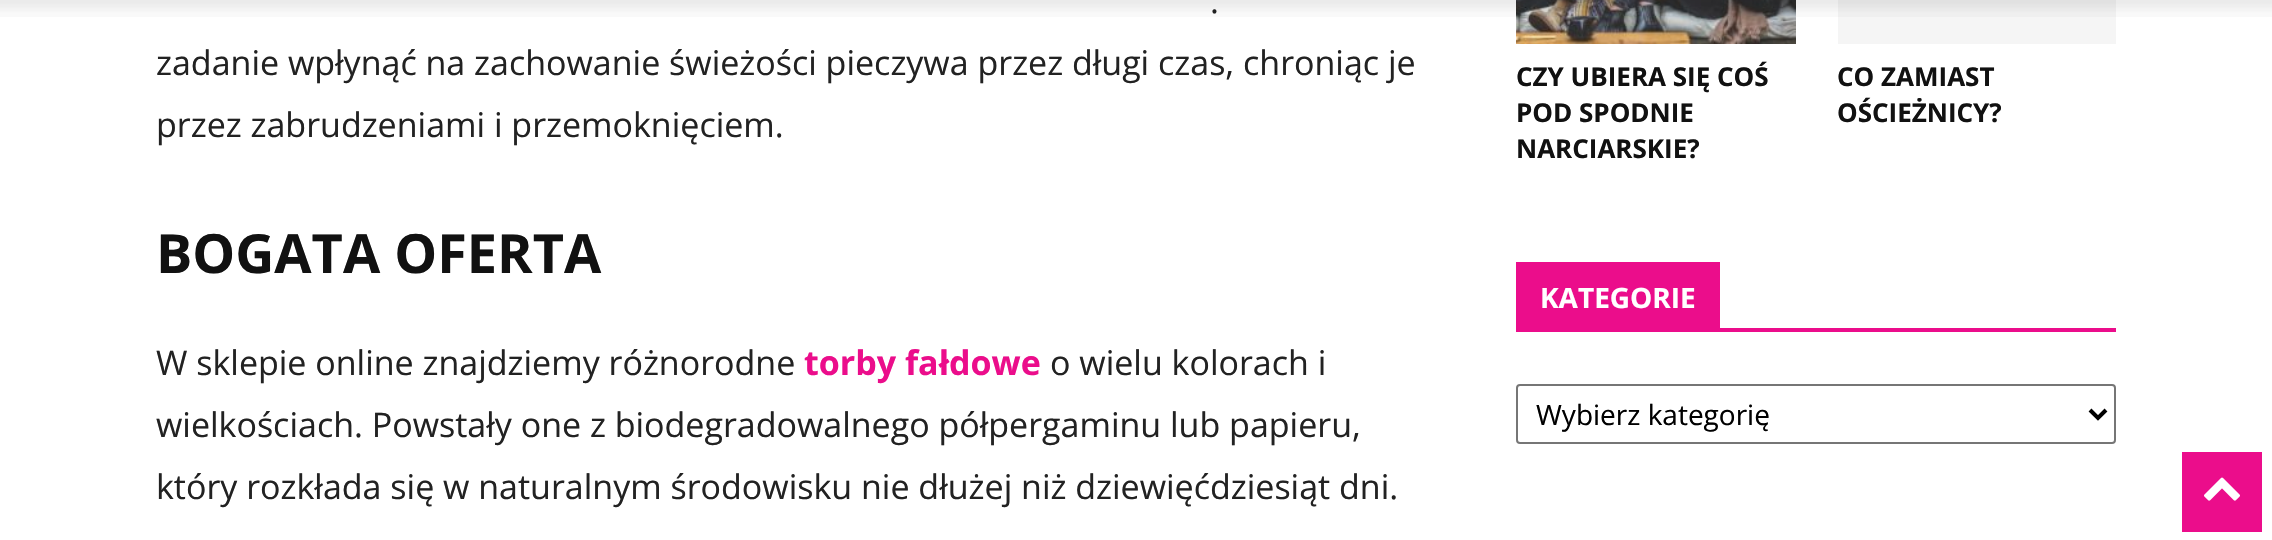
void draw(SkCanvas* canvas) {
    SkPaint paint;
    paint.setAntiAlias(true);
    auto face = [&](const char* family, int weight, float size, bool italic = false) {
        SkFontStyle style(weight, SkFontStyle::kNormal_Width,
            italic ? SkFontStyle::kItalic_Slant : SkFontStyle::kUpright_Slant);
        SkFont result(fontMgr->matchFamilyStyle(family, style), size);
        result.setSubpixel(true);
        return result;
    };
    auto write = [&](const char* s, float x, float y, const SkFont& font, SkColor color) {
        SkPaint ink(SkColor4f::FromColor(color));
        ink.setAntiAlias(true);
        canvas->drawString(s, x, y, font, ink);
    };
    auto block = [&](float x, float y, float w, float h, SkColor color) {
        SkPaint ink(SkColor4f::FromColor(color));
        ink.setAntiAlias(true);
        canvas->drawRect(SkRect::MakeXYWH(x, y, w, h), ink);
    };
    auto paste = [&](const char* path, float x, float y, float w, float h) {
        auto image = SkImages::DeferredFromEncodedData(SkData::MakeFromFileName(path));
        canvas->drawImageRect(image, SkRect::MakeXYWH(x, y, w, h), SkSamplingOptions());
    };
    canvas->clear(SK_ColorWHITE);
    auto kFont1 = face("Open Sans", 400, 34);
    write(".", 1210, 13, kFont1, SkColorSetRGB(34, 34, 34));
    paste("pic2.png", 1516, 0, 280, 44);
    block(1838, 0, 278, 44, SkColorSetRGB(245, 245, 245));
    paste("pic1.png", 0, 0, 2272, 17);
    write("zadanie wpłynąć na zachowanie świeżości pieczywa przez długi czas, chroniąc je", 156, 75, kFont1, SkColorSetRGB(34, 34, 34));
    write("przez zabrudzeniami i przemoknięciem.", 156, 137, kFont1, SkColorSetRGB(34, 34, 34));
    auto kFont2 = face("Open Sans", 700, 54);
    write("BOGATA OFERTA", 156, 273, kFont2, SkColorSetRGB(17, 17, 17));
    write("W sklepie online znajdziemy różnorodne", 156, 375, kFont1, SkColorSetRGB(34, 34, 34));
    auto kFont3 = face("Open Sans", 700, 34);
    write("torby fałdowe", 804, 375, kFont3, SkColorSetRGB(235, 13, 139));
    write("o wielu kolorach i", 1050, 375, kFont1, SkColorSetRGB(34, 34, 34));
    write("wielkościach. Powstały one z biodegradowalnego półpergaminu lub papieru,", 156, 437, kFont1, SkColorSetRGB(34, 34, 34));
    write("który rozkłada się w naturalnym środowisku nie dłużej niż dziewięćdziesiąt dni.", 156, 499, kFont1, SkColorSetRGB(34, 34, 34));
    auto kFont4 = face("Open Sans", 700, 26);
    write("CZY UBIERA SIĘ COŚ", 1516, 86, kFont4, SkColorSetRGB(17, 17, 17));
    write("POD SPODNIE", 1516, 122, kFont4, SkColorSetRGB(17, 17, 17));
    write("NARCIARSKIE?", 1516, 158, kFont4, SkColorSetRGB(17, 17, 17));
    write("CO ZAMIAST", 1837, 86, kFont4, SkColorSetRGB(17, 17, 17));
    write("OŚCIEŻNICY?", 1837, 122, kFont4, SkColorSetRGB(17, 17, 17));
    block(1516, 328, 600, 4, SkColorSetRGB(235, 13, 139));
    block(1516, 262, 204, 66, SkColorSetRGB(235, 13, 139));
    auto kFont5 = face("Open Sans", 700, 28);
    write("KATEGORIE", 1540, 308, kFont5, SK_ColorWHITE);
    paint.setStyle(SkPaint::kStroke_Style);
    paint.setStrokeWidth(2);
    paint.setColor(SkColorSetRGB(118, 118, 118));
    canvas->drawRoundRect(SkRect::MakeXYWH(1517, 385, 598, 58), 3, 3, paint);
    paint.setStrokeWidth(4);
    paint.setColor(SK_ColorBLACK);
    canvas->drawPath(SkPathBuilder().moveTo(2090, 410).lineTo(2098, 418).lineTo(2106, 410).detach(), paint);
    auto kFont6 = face("Open Sans", 400, 28);
    write("Wybierz kategorię", 1536, 425, kFont6, SK_ColorBLACK);
    block(2182, 452, 80, 80, SkColorSetRGB(235, 13, 139));
    paste("pic3.png", 2204, 477, 36, 24);
}
